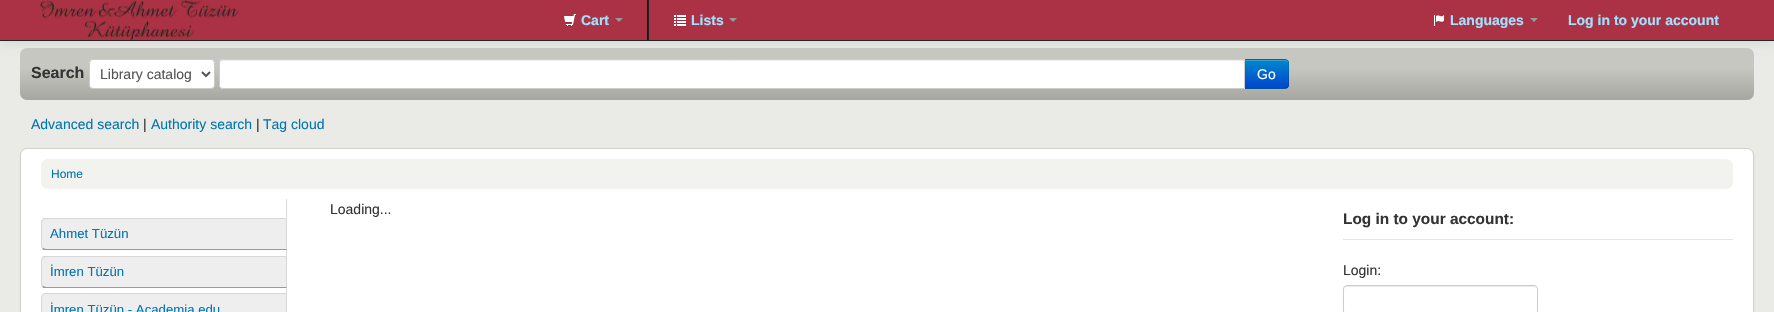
void draw(SkCanvas* canvas) {
    SkPaint paint;
    paint.setAntiAlias(true);
    auto face = [&](const char* family, int weight, float size, bool italic = false) {
        SkFontStyle style(weight, SkFontStyle::kNormal_Width,
            italic ? SkFontStyle::kItalic_Slant : SkFontStyle::kUpright_Slant);
        SkFont result(fontMgr->matchFamilyStyle(family, style), size);
        result.setSubpixel(true);
        return result;
    };
    auto write = [&](const char* s, float x, float y, const SkFont& font, SkColor color) {
        SkPaint ink(SkColor4f::FromColor(color));
        ink.setAntiAlias(true);
        canvas->drawString(s, x, y, font, ink);
    };
    auto block = [&](float x, float y, float w, float h, SkColor color) {
        SkPaint ink(SkColor4f::FromColor(color));
        ink.setAntiAlias(true);
        canvas->drawRect(SkRect::MakeXYWH(x, y, w, h), ink);
    };
    auto card = [&](float x, float y, float w, float h, float radius, SkColor color) {
        SkPaint ink(SkColor4f::FromColor(color));
        ink.setAntiAlias(true);
        canvas->drawRoundRect(SkRect::MakeXYWH(x, y, w, h), radius, radius, ink);
    };
    auto paste = [&](const char* path, float x, float y, float w, float h) {
        auto image = SkImages::DeferredFromEncodedData(SkData::MakeFromFileName(path));
        canvas->drawImageRect(image, SkRect::MakeXYWH(x, y, w, h), SkSamplingOptions());
    };
    canvas->clear(SkColorSetRGB(234, 234, 230));
    paint.setColor(SkColorSetARGB(26, 0, 0, 0));
    paint.setMaskFilter(SkMaskFilter::MakeBlur(kNormal_SkBlurStyle, 5));
    canvas->drawRect(SkRect::MakeXYWH(0, 1, 1774, 41), paint);
    paint.setMaskFilter(nullptr);
    block(0, 0, 1774, 40, SkColorSetRGB(171, 50, 69));
    block(0, 40, 1774, 1, SkColorSetRGB(37, 37, 37));
    paste("pic1.png", 40, 0, 200, 40);
    paste("pic2.png", 564, 14, 12, 13);
    auto kFont1 = face("Liberation Sans", 700, 14);
    write("Cart", 581, 25, kFont1, SkColorSetRGB(159, 225, 255));
    paint.setColor(SkColorSetRGB(153, 153, 153));
    canvas->drawPath(SkPathBuilder().moveTo(615, 18).lineTo(623, 18).lineTo(619, 22).close().detach(), paint);
    block(648, 0, 1, 40, SkColorSetRGB(34, 34, 34));
    block(647, 0, 1, 40, SkColorSetRGB(17, 17, 17));
    paste("pic3.png", 674, 15, 12, 12);
    write("Lists", 691, 25, kFont1, SkColorSetRGB(159, 225, 255));
    canvas->drawPath(SkPathBuilder().moveTo(729, 18).lineTo(737, 18).lineTo(733, 22).close().detach(), paint);
    paste("pic4.png", 1434, 15, 10, 12);
    write("Languages", 1450, 25, kFont1, SkColorSetRGB(159, 225, 255));
    canvas->drawPath(SkPathBuilder().moveTo(1530, 18).lineTo(1538, 18).lineTo(1534, 22).close().detach(), paint);
    write("Log in to your account", 1568, 25, kFont1, SkColorSetRGB(159, 225, 255));
    {
        const SkColor colors[] = {SkColorSetRGB(199, 199, 193), SkColorSetRGB(167, 167, 162)};
        const float stops[] = {0.38f, 1};
        const SkPoint ends[] = {{887, 48}, {887, 100}};
        paint.setShader(SkGradientShader::MakeLinear(ends, colors, stops, 2, SkTileMode::kClamp));
        paint.setAlpha(255);
    }
    canvas->drawRoundRect(SkRect::MakeXYWH(20, 48, 1734, 52), 7, 7, paint);
    auto kFont2 = face("Liberation Sans", 700, 16);
    write("Search", 31, 78, kFont2, SkColorSetRGB(51, 51, 51));
    paint.setShader(nullptr);
    paint.setColor(SK_ColorWHITE);
    canvas->drawRoundRect(SkRect::MakeXYWH(89.5f, 59.5f, 125, 29), 3.5f, 3.5f, paint);
    paint.setStyle(SkPaint::kStroke_Style);
    paint.setStrokeWidth(1);
    paint.setColor(SkColorSetRGB(204, 204, 204));
    canvas->drawRoundRect(SkRect::MakeXYWH(89.5f, 59.5f, 125, 29), 3.5f, 3.5f, paint);
    paint.setStrokeWidth(2);
    paint.setColor(SkColorSetRGB(85, 85, 85));
    canvas->drawPath(SkPathBuilder().moveTo(202, 72).lineTo(206, 76).lineTo(210, 72).detach(), paint);
    auto kFont3 = face("Liberation Sans", 400, 14);
    write("Library catalog", 100, 79, kFont3, SkColorSetRGB(85, 85, 85));
    paint.setStyle(SkPaint::kFill_Style);
    paint.setColor(SkColorSetRGB(0, 109, 204));
    canvas->drawPath(SkPathBuilder().moveTo(1244, 59).lineTo(1285, 59).cubicTo(1287, 59, 1289, 61, 1289, 63).lineTo(1289, 85).cubicTo(1289, 87, 1287, 89, 1285, 89).lineTo(1244, 89).close().detach(), paint);
    canvas->save();
    canvas->clipPath(SkPathBuilder().moveTo(1244, 59).lineTo(1285, 59).cubicTo(1287, 59, 1289, 61, 1289, 63).lineTo(1289, 85).cubicTo(1289, 87, 1287, 89, 1285, 89).lineTo(1244, 89).close().detach(), true);
    {
        const SkColor colors[] = {SkColorSetRGB(0, 136, 204), SkColorSetRGB(0, 68, 204)};
        const float stops[] = {0, 1};
        const SkPoint ends[] = {{1267, 60}, {1267, 88}};
        paint.setShader(SkGradientShader::MakeLinear(ends, colors, stops, 2, SkTileMode::kClamp));
        paint.setAlpha(255);
    }
    canvas->drawRect(SkRect::MakeXYWH(1245, 60, 44, 28), paint);
    canvas->restore();
    paint.setShader(nullptr);
    paint.setColor(SkColorSetARGB(51, 255, 255, 255));
    canvas->drawPath(SkPathBuilder().moveTo(1245, 61).lineTo(1278, 61).cubicTo(1285, 61, 1287, 61, 1288, 63).cubicTo(1288, 61, 1287, 60, 1285, 60).lineTo(1245, 60).close().detach(), paint);
    paint.setColor(SkColorSetARGB(26, 0, 0, 0));
    canvas->drawPath(SkPathBuilder().moveTo(1244, 59).lineTo(1245, 60).lineTo(1278, 60).cubicTo(1283, 60, 1286, 60, 1287, 61).lineTo(1288, 60).cubicTo(1286, 59, 1283, 59, 1278, 59).close().detach(), paint);
    canvas->drawPath(SkPathBuilder().moveTo(1289, 86).lineTo(1288, 88).lineTo(1287, 87).cubicTo(1288, 86.5f, 1288, 85.5f, 1288, 84.5f).lineTo(1288, 74).lineTo(1288, 63.5f).cubicTo(1288, 62.5f, 1288, 61.5f, 1287, 61).lineTo(1288, 60).lineTo(1289, 62).close().detach(), paint);
    paint.setColor(SkColorSetARGB(64, 0, 0, 0));
    canvas->drawPath(SkPathBuilder().moveTo(1278, 89).cubicTo(1283, 89, 1286, 89, 1288, 88).lineTo(1287, 87).cubicTo(1286, 88, 1283, 88, 1278, 88).lineTo(1245, 88).lineTo(1244, 89).close().detach(), paint);
    paint.setColor(SK_ColorWHITE);
    canvas->drawPath(SkPathBuilder().moveTo(223, 59).lineTo(1245, 59).lineTo(1245, 89).lineTo(223, 89).cubicTo(221, 89, 219, 87, 219, 85).lineTo(219, 63).cubicTo(219, 61, 221, 59, 223, 59).close().detach(), paint);
    paint.setColor(SkColorSetRGB(236, 236, 236));
    canvas->drawPath(SkPathBuilder().moveTo(223, 61).lineTo(1244, 61).lineTo(1244, 60).lineTo(223, 60).cubicTo(221, 60, 220, 62, 220, 64).cubicTo(220, 62, 221, 61, 223, 61).close().detach(), paint);
    paint.setStyle(SkPaint::kStroke_Style);
    paint.setStrokeWidth(1);
    paint.setColor(SkColorSetRGB(204, 204, 204));
    canvas->drawPath(SkPathBuilder().moveTo(223, 59.5f).lineTo(1244.5f, 59.5f).lineTo(1244.5f, 88.5f).lineTo(223, 88.5f).cubicTo(221, 88.5f, 219.5f, 87, 219.5f, 85).lineTo(219.5f, 63).cubicTo(219.5f, 61, 221, 59.5f, 223, 59.5f).close().detach(), paint);
    write("Go", 1257, 79, kFont3, SK_ColorWHITE);
    write("Advanced search", 31, 129, kFont3, SkColorSetRGB(0, 118, 178));
    write("|", 143, 129, kFont3, SkColorSetRGB(51, 51, 51));
    write("Authority search", 151, 129, kFont3, SkColorSetRGB(0, 118, 178));
    write("|", 256, 129, kFont3, SkColorSetRGB(51, 51, 51));
    write("Tag cloud", 263, 129, kFont3, SkColorSetRGB(0, 118, 178));
    paint.setStyle(SkPaint::kFill_Style);
    paint.setColor(SkColorSetARGB(51, 0, 0, 0));
    paint.setMaskFilter(SkMaskFilter::MakeBlur(kNormal_SkBlurStyle, 0.5f));
    canvas->drawRoundRect(SkRect::MakeXYWH(20, 149, 1734, 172), 7, 7, paint);
    paint.setMaskFilter(nullptr);
    paint.setColor(SK_ColorWHITE);
    canvas->drawRoundRect(SkRect::MakeXYWH(20.5f, 148.5f, 1733, 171), 6.5f, 6.5f, paint);
    paint.setStyle(SkPaint::kStroke_Style);
    paint.setColor(SkColorSetRGB(210, 210, 207));
    canvas->drawRoundRect(SkRect::MakeXYWH(20.5f, 148.5f, 1733, 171), 6.5f, 6.5f, paint);
    card(41, 159, 1692, 30, 7, SkColorSetRGB(242, 242, 239));
    auto kFont4 = face("Liberation Sans", 400, 12);
    write("Home", 51, 178, kFont4, SkColorSetRGB(0, 118, 178));
    write("Loading...", 330, 214, kFont3, SkColorSetRGB(51, 51, 51));
    block(286, 199, 1, 94, SkColorSetRGB(216, 216, 216));
    paint.setStyle(SkPaint::kFill_Style);
    paint.setColor(SkColorSetRGB(238, 238, 238));
    canvas->drawPath(SkPathBuilder().moveTo(46, 218).lineTo(287, 218).lineTo(287, 250).lineTo(46, 250).cubicTo(43, 250, 41, 248, 41, 245).lineTo(41, 223).cubicTo(41, 220, 43, 218, 46, 218).close().detach(), paint);
    paint.setColor(SkColorSetRGB(216, 216, 216));
    canvas->drawPath(SkPathBuilder().moveTo(46, 218).cubicTo(44, 218, 43, 218, 42, 219).lineTo(43, 220).cubicTo(44, 220, 45, 219, 46, 219).lineTo(286, 219).lineTo(287, 218).close().detach(), paint);
    canvas->drawPath(SkPathBuilder().moveTo(287, 218).lineTo(286, 219).lineTo(286, 249).lineTo(287, 250).close().detach(), paint);
    paint.setColor(SkColorSetRGB(153, 153, 153));
    canvas->drawPath(SkPathBuilder().moveTo(287, 250).lineTo(286, 249).lineTo(46, 249).cubicTo(45, 249, 44, 248, 43, 248).lineTo(42, 249).cubicTo(43, 250, 44, 250, 46, 250).close().detach(), paint);
    paint.setColor(SkColorSetRGB(216, 216, 216));
    canvas->drawPath(SkPathBuilder().moveTo(41, 223).lineTo(41, 245).cubicTo(41, 246.5f, 41.5f, 248, 42.5f, 248.5f).lineTo(43, 248).cubicTo(42.5f, 247, 42, 246, 42, 245).lineTo(42, 223).cubicTo(42, 222, 42.5f, 221, 43, 220).lineTo(42.5f, 219.5f).cubicTo(41.5f, 220, 41, 221.5f, 41, 223).close().detach(), paint);
    auto kFont5 = face("Liberation Sans", 400, 13.2f);
    write("Ahmet Tüzün", 50, 238, kFont5, SkColorSetRGB(0, 118, 178));
    paint.setColor(SkColorSetRGB(238, 238, 238));
    canvas->drawPath(SkPathBuilder().moveTo(46, 256).lineTo(287, 256).lineTo(287, 288).lineTo(46, 288).cubicTo(43, 288, 41, 286, 41, 283).lineTo(41, 261).cubicTo(41, 258, 43, 256, 46, 256).close().detach(), paint);
    paint.setColor(SkColorSetRGB(216, 216, 216));
    canvas->drawPath(SkPathBuilder().moveTo(46, 256).cubicTo(44, 256, 43, 256, 42, 257).lineTo(43, 258).cubicTo(44, 258, 45, 257, 46, 257).lineTo(286, 257).lineTo(287, 256).close().detach(), paint);
    canvas->drawPath(SkPathBuilder().moveTo(287, 256).lineTo(286, 257).lineTo(286, 287).lineTo(287, 288).close().detach(), paint);
    paint.setColor(SkColorSetRGB(153, 153, 153));
    canvas->drawPath(SkPathBuilder().moveTo(287, 288).lineTo(286, 287).lineTo(46, 287).cubicTo(45, 287, 44, 286, 43, 286).lineTo(42, 287).cubicTo(43, 288, 44, 288, 46, 288).close().detach(), paint);
    paint.setColor(SkColorSetRGB(216, 216, 216));
    canvas->drawPath(SkPathBuilder().moveTo(41, 261).lineTo(41, 283).cubicTo(41, 284.5f, 41.5f, 286, 42.5f, 286.5f).lineTo(43, 286).cubicTo(42.5f, 285, 42, 284, 42, 283).lineTo(42, 261).cubicTo(42, 260, 42.5f, 259, 43, 258).lineTo(42.5f, 257.5f).cubicTo(41.5f, 258, 41, 259.5f, 41, 261).close().detach(), paint);
    write("İmren Tüzün", 50, 276, kFont5, SkColorSetRGB(0, 118, 178));
    paint.setColor(SkColorSetRGB(238, 238, 238));
    canvas->drawPath(SkPathBuilder().moveTo(46, 293).lineTo(287, 293).lineTo(287, 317).lineTo(46, 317).cubicTo(43, 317, 41, 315, 41, 312).lineTo(41, 298).cubicTo(41, 295, 43, 293, 46, 293).close().detach(), paint);
    paint.setColor(SkColorSetRGB(216, 216, 216));
    canvas->drawPath(SkPathBuilder().moveTo(46, 293).cubicTo(44, 293, 43, 294, 42, 294).lineTo(43, 295).cubicTo(44, 294, 45, 294, 46, 294).lineTo(286, 294).lineTo(287, 293).close().detach(), paint);
    canvas->drawPath(SkPathBuilder().moveTo(287, 293).lineTo(286, 294).lineTo(286, 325).lineTo(287, 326).close().detach(), paint);
    canvas->drawPath(SkPathBuilder().moveTo(41, 298).lineTo(41, 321).cubicTo(41, 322.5f, 41.5f, 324, 42.5f, 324.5f).lineTo(43, 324).cubicTo(42.5f, 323, 42, 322, 42, 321).lineTo(42, 298).cubicTo(42, 297, 42.5f, 296, 43, 295).lineTo(42.5f, 294.5f).cubicTo(41.5f, 295, 41, 296.5f, 41, 298).close().detach(), paint);
    write("İmren Tüzün - Academia.edu", 50, 314, kFont5, SkColorSetRGB(0, 118, 178));
    block(1343, 239, 390, 1, SkColorSetRGB(229, 229, 229));
    auto kFont6 = face("Liberation Sans", 700, 15.4f);
    write("Log in to your account:", 1343, 224, kFont6, SkColorSetRGB(51, 51, 51));
    write("Login:", 1343, 275, kFont3, SkColorSetRGB(51, 51, 51));
    paint.setColor(SkColorSetRGB(236, 236, 236));
    canvas->drawPath(SkPathBuilder().moveTo(1347, 287).lineTo(1534, 287).cubicTo(1536, 287, 1537, 288, 1537, 290).cubicTo(1537, 288, 1536, 286, 1534, 286).lineTo(1347, 286).cubicTo(1345, 286, 1344, 288, 1344, 290).cubicTo(1344, 288, 1345, 287, 1347, 287).close().detach(), paint);
    paint.setStyle(SkPaint::kStroke_Style);
    paint.setColor(SkColorSetRGB(204, 204, 204));
    canvas->drawRoundRect(SkRect::MakeXYWH(1343.5f, 285.5f, 194, 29), 3.5f, 3.5f, paint);
}
